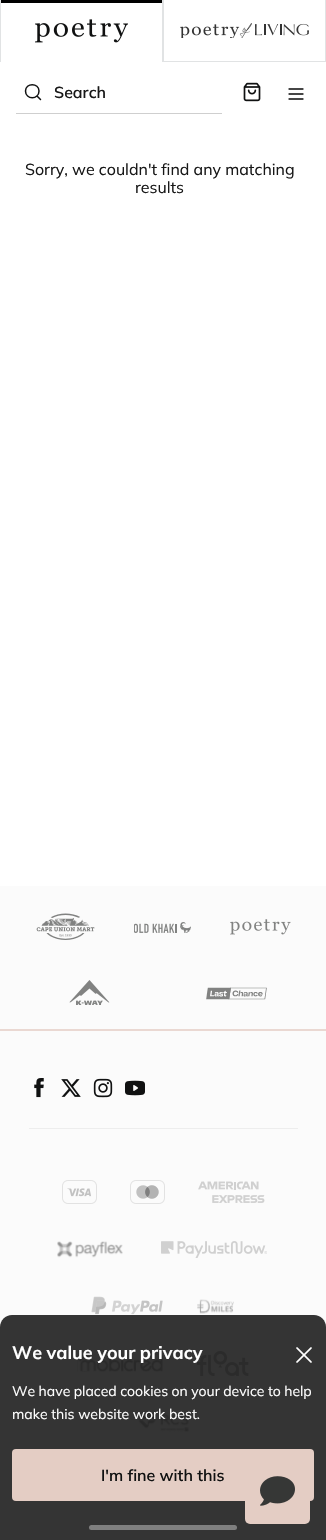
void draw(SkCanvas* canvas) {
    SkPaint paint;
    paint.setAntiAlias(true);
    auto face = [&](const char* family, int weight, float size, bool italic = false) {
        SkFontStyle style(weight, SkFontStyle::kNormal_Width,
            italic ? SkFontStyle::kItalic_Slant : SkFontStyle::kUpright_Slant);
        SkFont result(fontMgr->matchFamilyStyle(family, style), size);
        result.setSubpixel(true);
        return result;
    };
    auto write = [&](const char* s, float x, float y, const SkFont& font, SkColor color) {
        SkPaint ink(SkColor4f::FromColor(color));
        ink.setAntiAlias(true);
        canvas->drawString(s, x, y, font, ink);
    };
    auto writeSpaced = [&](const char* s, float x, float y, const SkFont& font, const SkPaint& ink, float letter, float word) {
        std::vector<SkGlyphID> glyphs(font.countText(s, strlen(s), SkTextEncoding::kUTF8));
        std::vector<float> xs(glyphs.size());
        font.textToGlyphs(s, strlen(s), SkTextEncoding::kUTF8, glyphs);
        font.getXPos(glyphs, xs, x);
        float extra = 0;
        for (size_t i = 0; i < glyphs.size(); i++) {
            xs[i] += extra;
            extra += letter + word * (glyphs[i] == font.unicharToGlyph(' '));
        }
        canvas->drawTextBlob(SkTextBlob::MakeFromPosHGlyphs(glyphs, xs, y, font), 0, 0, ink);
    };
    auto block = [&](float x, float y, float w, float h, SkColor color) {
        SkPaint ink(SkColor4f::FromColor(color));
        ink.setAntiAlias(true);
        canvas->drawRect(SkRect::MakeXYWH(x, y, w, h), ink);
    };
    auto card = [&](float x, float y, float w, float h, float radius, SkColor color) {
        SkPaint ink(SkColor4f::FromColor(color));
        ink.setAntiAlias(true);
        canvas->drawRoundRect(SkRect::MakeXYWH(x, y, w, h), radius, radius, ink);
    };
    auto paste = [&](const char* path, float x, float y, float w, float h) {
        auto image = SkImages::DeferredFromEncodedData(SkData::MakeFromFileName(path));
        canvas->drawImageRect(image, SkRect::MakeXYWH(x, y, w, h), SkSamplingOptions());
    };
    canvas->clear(SK_ColorWHITE);
    block(162, 0, 1, 62, SkColorSetRGB(225, 227, 228));
    block(0, 0, 1, 62, SkColorSetRGB(225, 227, 228));
    block(1, 0, 161, 3, SK_ColorBLACK);
    paste("pic1.png", 35, 19, 93, 24);
    block(325, 0, 1, 62, SkColorSetRGB(225, 227, 228));
    block(163, 61, 163, 1, SkColorSetRGB(225, 227, 228));
    block(163, 0, 1, 62, SkColorSetRGB(225, 227, 228));
    paste("pic2.png", 180, 23, 129, 15);
    block(16, 113, 206, 1, SkColorSetRGB(207, 207, 207));
    paint.setStyle(SkPaint::kStroke_Style);
    paint.setStrokeWidth(1.5f);
    paint.setStrokeCap(SkPaint::kRound_Cap);
    paint.setStrokeJoin(SkPaint::kRound_Join);
    paint.setColor(SkColorSetRGB(16, 17, 17));
    canvas->drawPath(SkPathBuilder().moveTo(40.5f, 99.5f).lineTo(37, 96).moveTo(39, 91).cubicTo(39, 100, 25.5f, 100, 25.5f, 91).cubicTo(25.5f, 82.5f, 39, 82.5f, 39, 91).close().detach(), paint);
    auto kFont1 = face("Mulish", 600, 16);
    write("Search", 54, 98, kFont1, SkColorSetRGB(24, 24, 24));
    paste("pic3.png", 243, 82, 18, 20);
    paste("pic4.png", 288, 88, 16, 12);
    auto kFont2 = face("Mulish", 400, 16);
    write("Sorry, we couldn't find any matching", 25, 175, kFont2, SkColorSetRGB(24, 24, 24));
    write("results", 135, 193, kFont2, SkColorSetRGB(24, 24, 24));
    block(0, 886, 326, 654, SkColorSetRGB(251, 251, 251));
    paste("pic5.png", 36, 913, 59, 27);
    paste("pic6.png", 134, 922, 57, 11);
    paste("pic7.png", 230, 919, 61, 16);
    paste("pic8.png", 69, 980, 41, 25);
    paste("pic9.png", 206, 987, 61, 13);
    block(0, 1029, 326, 2, SkColorSetRGB(234, 216, 210));
    paste("pic10.png", 34, 1078, 10, 20);
    paste("pic11.png", 61, 1079, 20, 18);
    paste("pic12.png", 93, 1078, 20, 20);
    paste("pic13.png", 125, 1080, 20, 16);
    block(29, 1128, 269, 1, SkColorSetRGB(237, 237, 237));
    paste("pic14.png", 62, 1180, 35, 24);
    paste("pic15.png", 130, 1180, 35, 24);
    paste("pic16.png", 198, 1181, 67, 22);
    paste("pic17.png", 57, 1241, 66, 17);
    paste("pic18.png", 161, 1241, 106, 17);
    paste("pic19.png", 91, 1296, 72, 19);
    paste("pic20.png", 197, 1299, 37, 15);
    paste("pic21.png", 77, 1354, 86, 18);
    paste("pic22.png", 197, 1351, 52, 25);
    paste("pic23.png", 138, 1411, 51, 21);
    paint.setStyle(SkPaint::kFill_Style);
    paint.setColor(SkColorSetARGB(217, 16, 17, 17));
    canvas->drawPath(SkPathBuilder().moveTo(12, 1315).lineTo(314, 1315).cubicTo(320.5f, 1315, 326, 1320.5f, 326, 1327).lineTo(326, 1540).lineTo(0, 1540).lineTo(0, 1327).cubicTo(0, 1320.5f, 5.5f, 1315, 12, 1315).close().detach(), paint);
    auto kFont3 = face("Mulish", 700, 18);
    paint.setColor(SK_ColorWHITE);
    writeSpaced("We value your privacy", 12, 1359, kFont3, paint, 0, -0.5f);
    paste("pic24.png", 296, 1347, 16, 16);
    auto kFont4 = face("Mulish", 400, 14);
    writeSpaced("We have placed cookies on your device to help", 12, 1396, kFont4, paint, 0, -0.25f);
    write("make this website work best.", 12, 1419, kFont4, SK_ColorWHITE);
    card(12, 1449, 302, 52, 4, SkColorSetRGB(228, 205, 196));
    write("I'm fine with this", 101, 1481, kFont1, SkColorSetRGB(16, 17, 17));
    card(89, 1525, 148, 5, 2.5f, SkColorSetRGB(127, 127, 127));
    card(245, 1459, 65, 65, 5, SkColorSetRGB(228, 205, 196));
    paste("pic25.png", 260, 1476, 35, 30);
}
